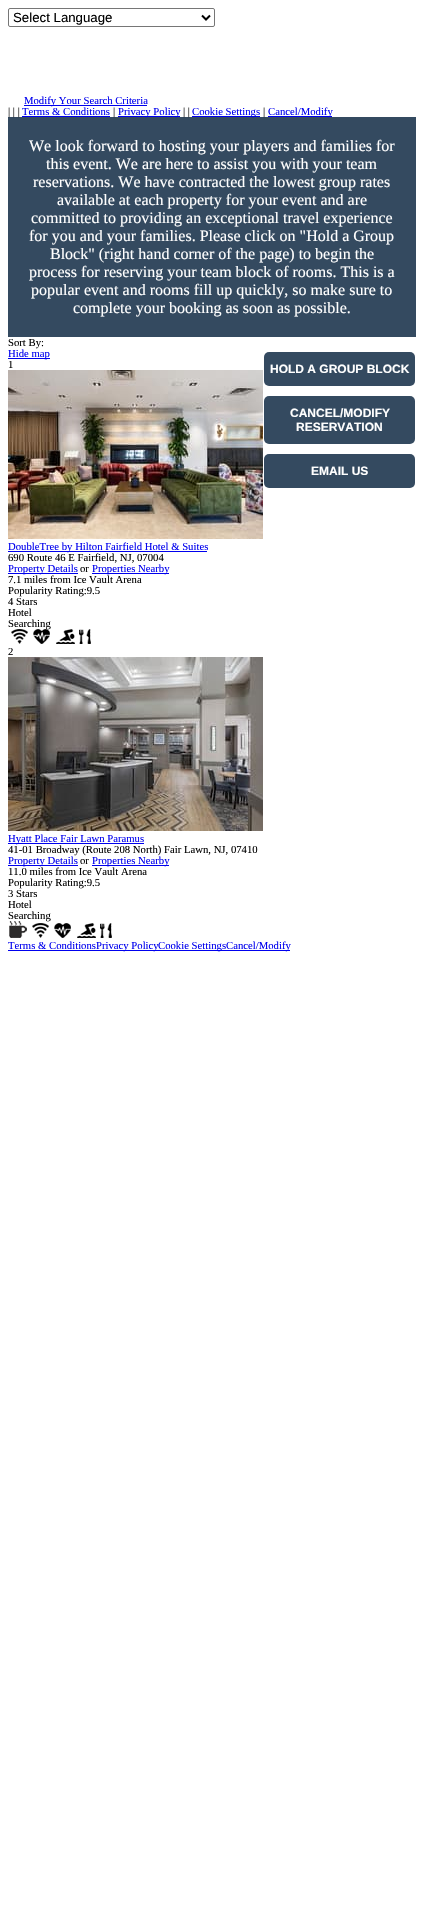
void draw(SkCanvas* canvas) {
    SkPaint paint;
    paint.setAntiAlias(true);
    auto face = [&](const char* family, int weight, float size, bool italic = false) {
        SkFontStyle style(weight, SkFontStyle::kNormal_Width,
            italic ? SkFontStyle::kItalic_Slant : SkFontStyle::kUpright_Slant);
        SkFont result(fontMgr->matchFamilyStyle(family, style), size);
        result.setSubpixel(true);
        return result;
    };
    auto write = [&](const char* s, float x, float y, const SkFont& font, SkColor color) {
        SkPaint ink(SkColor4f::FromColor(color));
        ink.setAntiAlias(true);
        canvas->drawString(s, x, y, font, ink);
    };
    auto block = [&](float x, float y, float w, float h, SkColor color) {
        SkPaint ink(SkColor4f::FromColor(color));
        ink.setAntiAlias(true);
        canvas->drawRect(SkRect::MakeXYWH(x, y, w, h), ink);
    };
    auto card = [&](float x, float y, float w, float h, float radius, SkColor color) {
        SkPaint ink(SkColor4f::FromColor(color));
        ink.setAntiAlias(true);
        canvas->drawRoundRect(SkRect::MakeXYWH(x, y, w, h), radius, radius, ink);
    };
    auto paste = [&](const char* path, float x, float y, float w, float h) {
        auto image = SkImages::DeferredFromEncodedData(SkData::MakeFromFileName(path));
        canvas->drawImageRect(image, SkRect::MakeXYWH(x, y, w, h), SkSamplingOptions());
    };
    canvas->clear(SK_ColorWHITE);
    paint.setStyle(SkPaint::kStroke_Style);
    paint.setStrokeWidth(1);
    paint.setColor(SkColorSetRGB(118, 118, 118));
    canvas->drawRoundRect(SkRect::MakeXYWH(8.5f, 8.5f, 206, 18), 1.5f, 1.5f, paint);
    paint.setStrokeWidth(2);
    paint.setColor(SK_ColorBLACK);
    canvas->drawPath(SkPathBuilder().moveTo(202, 15.5f).lineTo(206, 19.5f).lineTo(210, 15.5f).detach(), paint);
    auto kFont1 = face("Liberation Sans", 400, 13.25f);
    write("Select Language", 13, 22, kFont1, SK_ColorBLACK);
    block(24, 105, 123, 1, SkColorSetRGB(0, 0, 238));
    auto kFont2 = face("Liberation Serif", 400, 10.7f);
    write("Modify Your Search Criteria", 24, 104, kFont2, SkColorSetRGB(0, 0, 238));
    block(8, 117, 408, 220, SkColorSetRGB(52, 74, 96));
    write("| | |", 8, 115, kFont2, SK_ColorBLACK);
    write("Terms & Conditions", 22, 115, kFont2, SkColorSetRGB(0, 0, 238));
    block(22, 116, 88, 1, SkColorSetRGB(0, 0, 238));
    write("|", 113, 115, kFont2, SK_ColorBLACK);
    block(118, 116, 62, 1, SkColorSetRGB(0, 0, 238));
    write("Privacy Policy", 118, 115, kFont2, SkColorSetRGB(0, 0, 238));
    write("| |", 183, 115, kFont2, SK_ColorBLACK);
    block(192, 116, 68, 1, SkColorSetRGB(0, 0, 238));
    write("Cookie Settings", 192, 115, kFont2, SkColorSetRGB(0, 0, 238));
    write("|", 263, 115, kFont2, SK_ColorBLACK);
    block(268, 116, 64, 1, SkColorSetRGB(0, 0, 238));
    write("Cancel/Modify", 268, 115, kFont2, SkColorSetRGB(0, 0, 238));
    auto kFont3 = face("Liberation Serif", 400, 16);
    write("We look forward to hosting your players and families for", 29, 151, kFont3, SK_ColorWHITE);
    write("this event. We are here to assist you with your team", 46, 169, kFont3, SK_ColorWHITE);
    write("reservations. We have contracted the lowest group rates", 33, 187, kFont3, SK_ColorWHITE);
    write("available at each property for your event and are", 57, 205, kFont3, SK_ColorWHITE);
    write("committed to providing an exceptional travel experience", 31, 223, kFont3, SK_ColorWHITE);
    write("for you and your families. Please click on \"Hold a Group", 29, 241, kFont3, SK_ColorWHITE);
    write("Block\" (right hand corner of the page) to begin the", 50, 259, kFont3, SK_ColorWHITE);
    write("process for reserving your team block of rooms. This is a", 29, 277, kFont3, SK_ColorWHITE);
    write("popular event and rooms fill up quickly, so make sure to", 31, 295, kFont3, SK_ColorWHITE);
    write("complete your booking as soon as possible.", 73, 313, kFont3, SK_ColorWHITE);
    write("Sort By:", 8, 346, kFont2, SK_ColorBLACK);
    block(8, 358, 42, 1, SkColorSetRGB(0, 0, 238));
    write("Hide map", 8, 357, kFont2, SkColorSetRGB(0, 0, 238));
    write("1", 8, 368, kFont2, SK_ColorBLACK);
    paste("pic1.png", 8, 370, 255, 169);
    block(8, 551, 199, 1, SkColorSetRGB(0, 0, 238));
    write("DoubleTree by Hilton Fairfield Hotel & Suites", 8, 550, kFont2, SkColorSetRGB(0, 0, 238));
    write("690 Route 46 E Fairfield, NJ, 07004", 8, 561, kFont2, SK_ColorBLACK);
    block(8, 573, 70, 1, SkColorSetRGB(0, 0, 238));
    write("Property Details", 8, 572, kFont2, SkColorSetRGB(0, 0, 238));
    write("or", 80, 572, kFont2, SK_ColorBLACK);
    block(92, 573, 77, 1, SkColorSetRGB(0, 0, 238));
    write("Properties Nearby", 92, 572, kFont2, SkColorSetRGB(0, 0, 238));
    write("7.1 miles from Ice Vault Arena", 8, 583, kFont2, SK_ColorBLACK);
    write("Popularity Rating:9.5", 8, 594, kFont2, SK_ColorBLACK);
    write("4 Stars", 8, 605, kFont2, SK_ColorBLACK);
    write("Hotel", 8, 616, kFont2, SK_ColorBLACK);
    write("Searching", 8, 627, kFont2, SK_ColorBLACK);
    paste("pic2.png", 11, 629, 17, 15);
    paste("pic3.png", 33, 629, 17, 15);
    paste("pic4.png", 56, 629, 19, 15);
    paste("pic5.png", 79, 629, 12, 15);
    write("2", 8, 655, kFont2, SK_ColorBLACK);
    paste("pic6.png", 8, 657, 255, 174);
    block(8, 843, 136, 1, SkColorSetRGB(0, 0, 238));
    write("Hyatt Place Fair Lawn Paramus", 8, 842, kFont2, SkColorSetRGB(0, 0, 238));
    write("41-01 Broadway (Route 208 North) Fair Lawn, NJ, 07410", 8, 853, kFont2, SK_ColorBLACK);
    block(8, 865, 70, 1, SkColorSetRGB(0, 0, 238));
    write("Property Details", 8, 864, kFont2, SkColorSetRGB(0, 0, 238));
    write("or", 80, 864, kFont2, SK_ColorBLACK);
    block(92, 865, 77, 1, SkColorSetRGB(0, 0, 238));
    write("Properties Nearby", 92, 864, kFont2, SkColorSetRGB(0, 0, 238));
    write("11.0 miles from Ice Vault Arena", 8, 875, kFont2, SK_ColorBLACK);
    write("Popularity Rating:9.5", 8, 886, kFont2, SK_ColorBLACK);
    write("3 Stars", 8, 897, kFont2, SK_ColorBLACK);
    write("Hotel", 8, 908, kFont2, SK_ColorBLACK);
    write("Searching", 8, 919, kFont2, SK_ColorBLACK);
    paste("pic7.png", 9, 921, 18, 17);
    paste("pic2.png", 32, 923, 17, 15);
    paste("pic8.png", 54, 923, 17, 15);
    paste("pic4.png", 77, 923, 19, 15);
    paste("pic5.png", 100, 923, 12, 15);
    card(264, 352, 151, 34, 5, SkColorSetRGB(52, 74, 96));
    auto kFont4 = face("Liberation Sans", 700, 12);
    write("HOLD A GROUP BLOCK", 270, 373, kFont4, SK_ColorWHITE);
    card(264, 396, 151, 48, 5, SkColorSetRGB(52, 74, 96));
    write("CANCEL/MODIFY", 290, 417, kFont4, SK_ColorWHITE);
    write("RESERVATION", 296, 431, kFont4, SK_ColorWHITE);
    card(264, 454, 151, 34, 5, SkColorSetRGB(52, 74, 96));
    write("EMAIL US", 311, 475, kFont4, SK_ColorWHITE);
    block(8, 950, 150, 1, SkColorSetRGB(0, 0, 238));
    write("Terms & ConditionsPrivacy Policy", 8, 949, kFont2, SkColorSetRGB(0, 0, 238));
    block(158, 950, 132, 1, SkColorSetRGB(0, 0, 238));
    write("Cookie SettingsCancel/Modify", 158, 949, kFont2, SkColorSetRGB(0, 0, 238));
}
